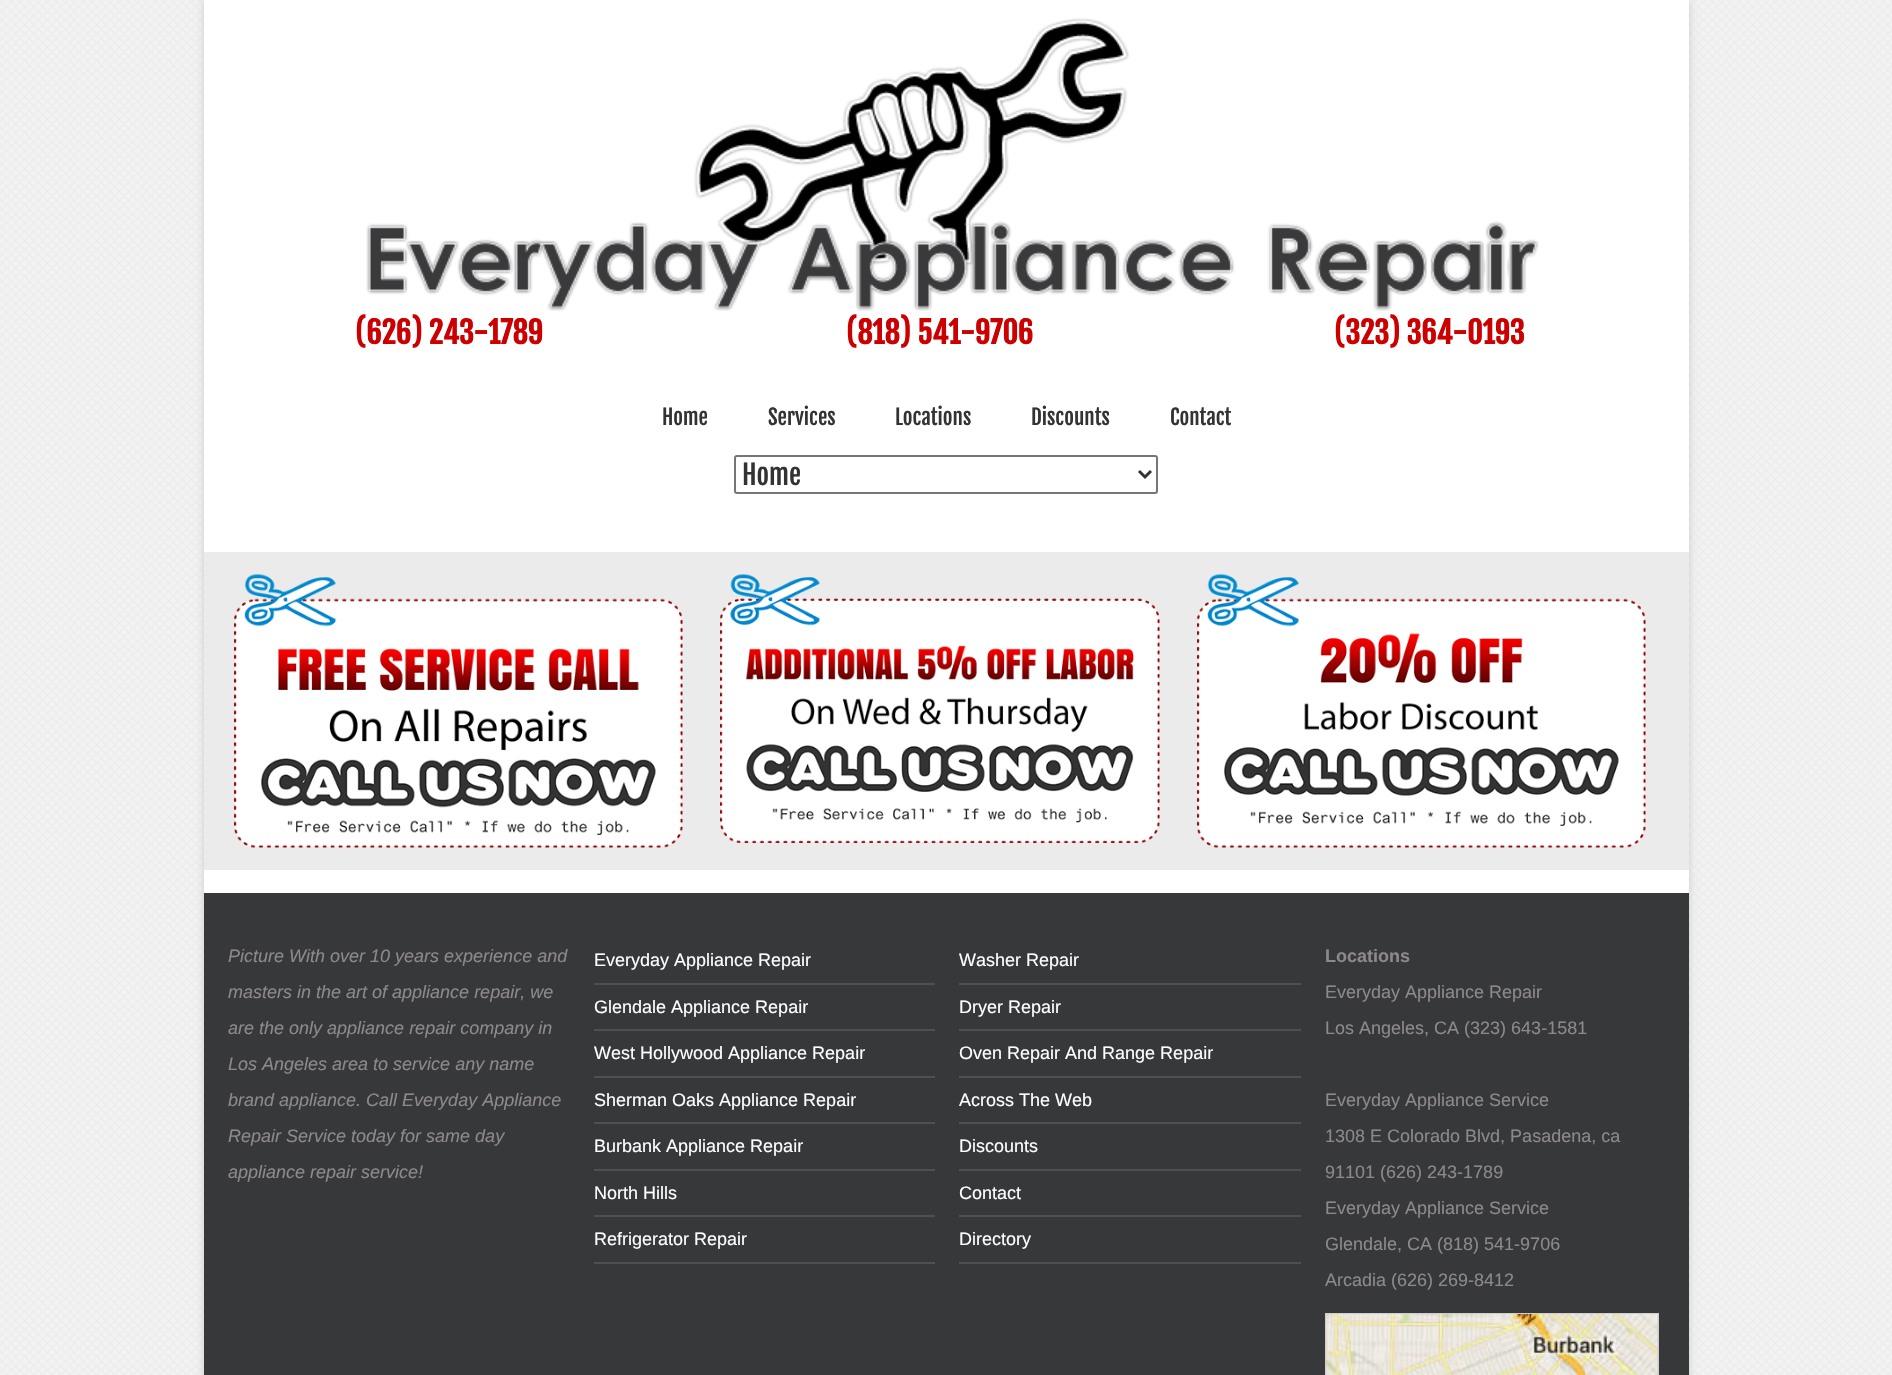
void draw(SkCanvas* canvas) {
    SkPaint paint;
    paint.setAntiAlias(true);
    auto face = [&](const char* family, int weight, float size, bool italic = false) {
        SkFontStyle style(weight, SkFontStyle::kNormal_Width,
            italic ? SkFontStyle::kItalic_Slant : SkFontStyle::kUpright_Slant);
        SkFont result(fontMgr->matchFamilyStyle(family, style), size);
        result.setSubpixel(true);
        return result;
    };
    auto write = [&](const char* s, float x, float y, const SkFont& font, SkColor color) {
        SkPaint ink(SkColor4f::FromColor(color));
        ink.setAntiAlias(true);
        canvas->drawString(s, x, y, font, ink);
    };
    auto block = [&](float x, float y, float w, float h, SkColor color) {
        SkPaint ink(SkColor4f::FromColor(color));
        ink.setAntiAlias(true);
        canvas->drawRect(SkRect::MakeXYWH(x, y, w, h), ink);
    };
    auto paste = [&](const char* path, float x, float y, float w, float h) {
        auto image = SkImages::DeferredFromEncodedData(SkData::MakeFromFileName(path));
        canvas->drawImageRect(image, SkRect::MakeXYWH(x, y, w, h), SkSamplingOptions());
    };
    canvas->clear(SK_ColorWHITE);
    paste("pic1.png", 0, 0, 1892, 1375);
    paint.setColor(SkColorSetRGB(204, 204, 204));
    paint.setMaskFilter(SkMaskFilter::MakeBlur(kNormal_SkBlurStyle, 4));
    canvas->drawRect(SkRect::MakeXYWH(204, 0, 1485, 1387), paint);
    paint.setMaskFilter(nullptr);
    block(204, 0, 1485, 893, SK_ColorWHITE);
    paste("pic2.png", 366, 18, 1173, 293);
    auto kFont1 = face("Fjalla One", 700, 30);
    write("(626) 243-1789", 355, 344, kFont1, SkColorSetRGB(204, 0, 0));
    write("(818) 541-9706", 846, 344, kFont1, SkColorSetRGB(204, 0, 0));
    write("(323) 364-0193", 1334, 344, kFont1, SkColorSetRGB(204, 0, 0));
    auto kFont2 = face("Fjalla One", 400, 21);
    write("Home", 662, 425, kFont2, SkColorSetRGB(51, 51, 51));
    write("Services", 768, 425, kFont2, SkColorSetRGB(51, 51, 51));
    write("Locations", 895, 425, kFont2, SkColorSetRGB(51, 51, 51));
    write("Discounts", 1031, 425, kFont2, SkColorSetRGB(51, 51, 51));
    write("Contact", 1170, 425, kFont2, SkColorSetRGB(51, 51, 51));
    paint.setStyle(SkPaint::kStroke_Style);
    paint.setStrokeWidth(2);
    paint.setColor(SkColorSetRGB(118, 118, 118));
    canvas->drawRoundRect(SkRect::MakeXYWH(735, 456, 422, 37), 2, 2, paint);
    paint.setStrokeWidth(3);
    paint.setColor(SkColorSetRGB(51, 51, 51));
    canvas->drawPath(SkPathBuilder().moveTo(1139, 471).lineTo(1145, 477).lineTo(1151, 471).detach(), paint);
    auto kFont3 = face("Fjalla One", 400, 27);
    write("Home", 742, 485, kFont3, SkColorSetRGB(51, 51, 51));
    block(204, 552, 1485, 318, SkColorSetRGB(235, 235, 235));
    paste("pic3.png", 234, 574, 449, 274);
    paste("pic4.png", 720, 574, 440, 269);
    paste("pic5.png", 1197, 574, 449, 274);
    block(204, 893, 1485, 482, SkColorSetRGB(55, 56, 58));
    auto kFont4 = face("Liberation Sans", 400, 18, true);
    write("Picture With over 10 years experience and", 228, 962, kFont4, SkColorSetRGB(141, 137, 138));
    write("masters in the art of appliance repair, we", 228, 998, kFont4, SkColorSetRGB(141, 137, 138));
    write("are the only appliance repair company in", 228, 1034, kFont4, SkColorSetRGB(141, 137, 138));
    write("Los Angeles area to service any name", 228, 1070, kFont4, SkColorSetRGB(141, 137, 138));
    write("brand appliance. Call Everyday Appliance", 228, 1106, kFont4, SkColorSetRGB(141, 137, 138));
    write("Repair Service today for same day", 228, 1142, kFont4, SkColorSetRGB(141, 137, 138));
    write("appliance repair service!", 228, 1178, kFont4, SkColorSetRGB(141, 137, 138));
    block(594, 983, 341, 2, SkColorSetRGB(80, 80, 80));
    auto kFont5 = face("Liberation Sans", 400, 18);
    write("Everyday Appliance Repair", 594, 966, kFont5, SK_ColorWHITE);
    block(594, 1029, 341, 2, SkColorSetRGB(80, 80, 80));
    write("Glendale Appliance Repair", 594, 1013, kFont5, SK_ColorWHITE);
    block(594, 1076, 341, 2, SkColorSetRGB(80, 80, 80));
    write("West Hollywood Appliance Repair", 594, 1059, kFont5, SK_ColorWHITE);
    block(594, 1122, 341, 2, SkColorSetRGB(80, 80, 80));
    write("Sherman Oaks Appliance Repair", 594, 1106, kFont5, SK_ColorWHITE);
    block(594, 1169, 341, 2, SkColorSetRGB(80, 80, 80));
    write("Burbank Appliance Repair", 594, 1152, kFont5, SK_ColorWHITE);
    block(594, 1215, 341, 2, SkColorSetRGB(80, 80, 80));
    write("North Hills", 594, 1199, kFont5, SK_ColorWHITE);
    block(594, 1262, 341, 2, SkColorSetRGB(80, 80, 80));
    write("Refrigerator Repair", 594, 1245, kFont5, SK_ColorWHITE);
    block(959, 983, 342, 2, SkColorSetRGB(80, 80, 80));
    write("Washer Repair", 959, 966, kFont5, SK_ColorWHITE);
    block(959, 1029, 342, 2, SkColorSetRGB(80, 80, 80));
    write("Dryer Repair", 959, 1013, kFont5, SK_ColorWHITE);
    block(959, 1076, 342, 2, SkColorSetRGB(80, 80, 80));
    write("Oven Repair And Range Repair", 959, 1059, kFont5, SK_ColorWHITE);
    block(959, 1122, 342, 2, SkColorSetRGB(80, 80, 80));
    write("Across The Web", 959, 1106, kFont5, SK_ColorWHITE);
    block(959, 1169, 342, 2, SkColorSetRGB(80, 80, 80));
    write("Discounts", 959, 1152, kFont5, SK_ColorWHITE);
    block(959, 1215, 342, 2, SkColorSetRGB(80, 80, 80));
    write("Contact", 959, 1199, kFont5, SK_ColorWHITE);
    block(959, 1262, 342, 2, SkColorSetRGB(80, 80, 80));
    write("Directory", 959, 1245, kFont5, SK_ColorWHITE);
    auto kFont6 = face("Liberation Sans", 700, 18);
    write("Locations", 1325, 962, kFont6, SkColorSetRGB(141, 137, 138));
    write("Everyday Appliance Repair", 1325, 998, kFont5, SkColorSetRGB(141, 137, 138));
    write("Los Angeles, CA (323) 643-1581", 1325, 1034, kFont5, SkColorSetRGB(141, 137, 138));
    write("Everyday Appliance Service", 1325, 1106, kFont5, SkColorSetRGB(141, 137, 138));
    write("1308 E Colorado Blvd, Pasadena, ca", 1325, 1142, kFont5, SkColorSetRGB(141, 137, 138));
    write("91101 (626) 243-1789", 1325, 1178, kFont5, SkColorSetRGB(141, 137, 138));
    write("Everyday Appliance Service", 1325, 1214, kFont5, SkColorSetRGB(141, 137, 138));
    write("Glendale, CA (818) 541-9706", 1325, 1250, kFont5, SkColorSetRGB(141, 137, 138));
    write("Arcadia (626) 269-8412", 1325, 1286, kFont5, SkColorSetRGB(141, 137, 138));
    paint.setStrokeWidth(2);
    paint.setColor(SkColorSetRGB(207, 206, 206));
    canvas->drawRect(SkRect::MakeXYWH(1326, 1314, 332, 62), paint);
    paste("pic6.png", 1326, 1314, 332, 61);
}
